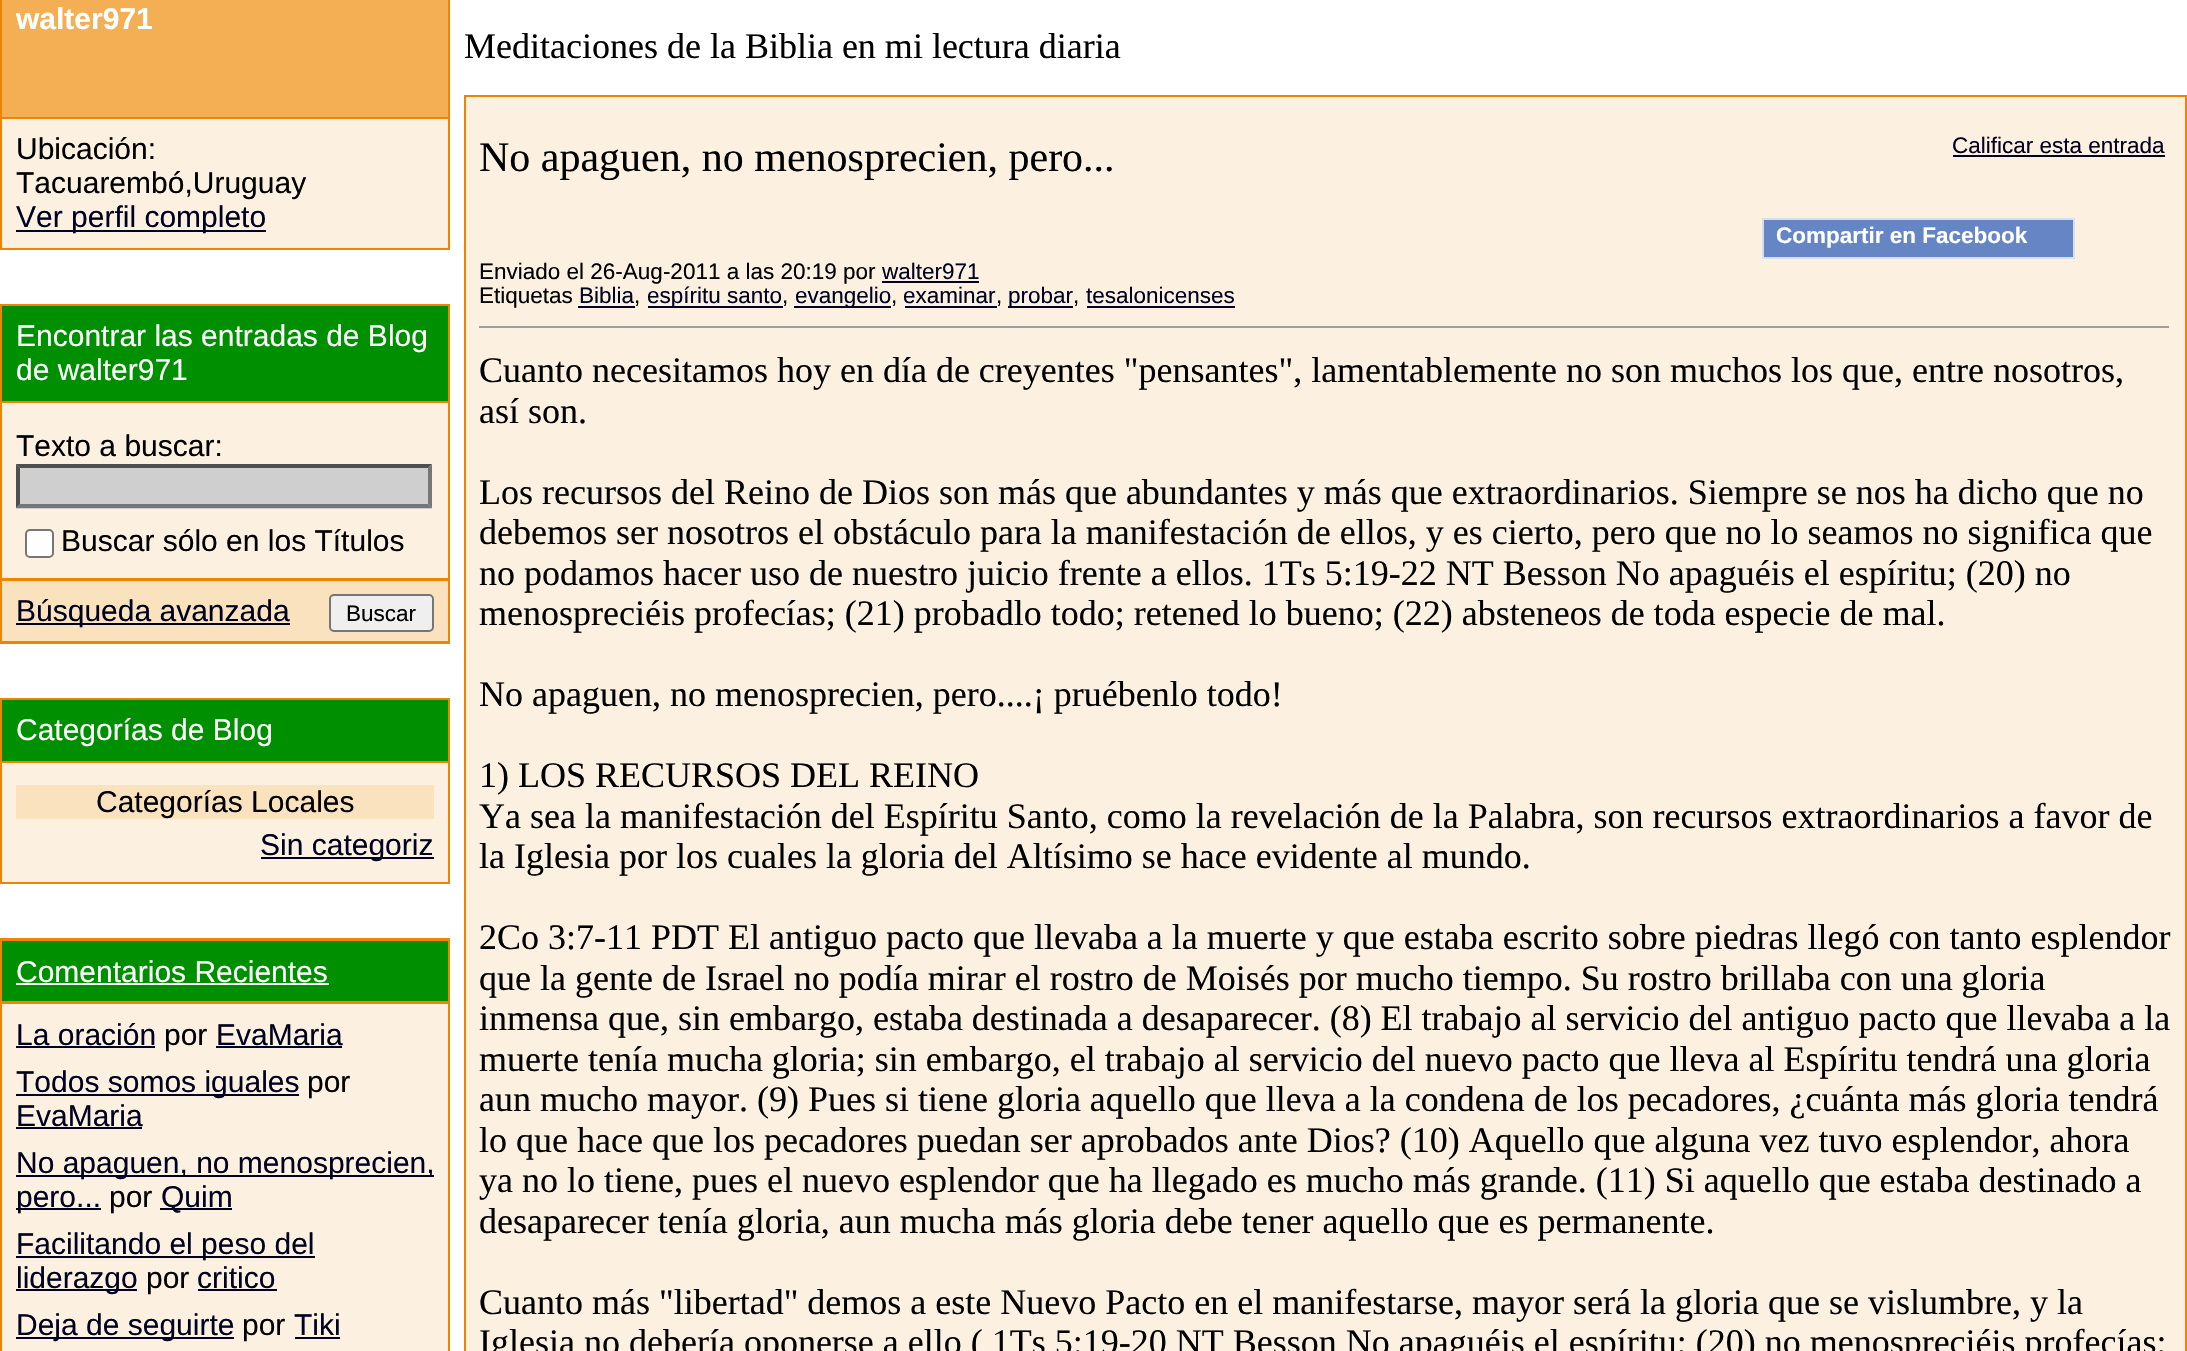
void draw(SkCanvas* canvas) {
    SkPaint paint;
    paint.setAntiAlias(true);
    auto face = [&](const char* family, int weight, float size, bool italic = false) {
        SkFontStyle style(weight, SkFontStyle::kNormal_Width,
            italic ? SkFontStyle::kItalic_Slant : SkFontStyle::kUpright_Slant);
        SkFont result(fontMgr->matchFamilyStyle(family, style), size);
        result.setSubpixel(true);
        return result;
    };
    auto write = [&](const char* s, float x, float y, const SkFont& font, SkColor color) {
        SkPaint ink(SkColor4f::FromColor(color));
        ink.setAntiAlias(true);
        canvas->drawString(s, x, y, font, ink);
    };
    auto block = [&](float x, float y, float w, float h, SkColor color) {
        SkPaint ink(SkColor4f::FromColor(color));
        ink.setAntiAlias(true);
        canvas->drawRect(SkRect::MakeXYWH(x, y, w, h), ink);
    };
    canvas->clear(SK_ColorWHITE);
    block(0, 0, 450, 250, SkColorSetRGB(238, 132, 2));
    block(2, 0, 446, 117, SkColorSetRGB(244, 175, 84));
    auto kFont1 = face("Liberation Sans", 700, 30);
    write("walter971", 16, 29, kFont1, SK_ColorWHITE);
    block(2, 119, 446, 129, SkColorSetRGB(252, 241, 224));
    auto kFont2 = face("Liberation Sans", 400, 30);
    write("Ubicación:", 16, 159, kFont2, SK_ColorBLACK);
    write("Tacuarembó,Uruguay", 16, 193, kFont2, SK_ColorBLACK);
    block(16, 230, 250, 2, SkColorSetRGB(0, 0, 32));
    write("Ver perfil completo", 16, 227, kFont2, SkColorSetRGB(0, 0, 32));
    block(0, 304, 450, 340, SkColorSetRGB(238, 132, 2));
    block(2, 306, 446, 95, SkColorSetRGB(0, 143, 0));
    write("Encontrar las entradas de Blog", 16, 346, kFont2, SK_ColorWHITE);
    write("de walter971", 16, 380, kFont2, SK_ColorWHITE);
    block(2, 403, 446, 175, SkColorSetRGB(252, 241, 224));
    write("Texto a buscar:", 16, 456, kFont2, SK_ColorBLACK);
    block(16, 464, 416, 45, SkColorSetRGB(207, 207, 207));
    paint.setColor(SkColorSetRGB(79, 79, 79));
    canvas->drawPath(SkPathBuilder().moveTo(16, 464).lineTo(432, 464).lineTo(428, 468).lineTo(20, 468).close().detach(), paint);
    paint.setColor(SkColorSetRGB(118, 118, 118));
    canvas->drawPath(SkPathBuilder().moveTo(432, 464).lineTo(432, 508).lineTo(428, 504).lineTo(428, 468).close().detach(), paint);
    canvas->drawPath(SkPathBuilder().moveTo(432, 508).lineTo(16, 508).lineTo(20, 504).lineTo(428, 504).close().detach(), paint);
    paint.setColor(SkColorSetRGB(79, 79, 79));
    canvas->drawPath(SkPathBuilder().moveTo(16, 508).lineTo(16, 464).lineTo(20, 468).lineTo(20, 504).close().detach(), paint);
    paint.setColor(SK_ColorWHITE);
    canvas->drawRoundRect(SkRect::MakeXYWH(26, 530, 27, 27), 4, 4, paint);
    paint.setStyle(SkPaint::kStroke_Style);
    paint.setStrokeWidth(2);
    paint.setColor(SkColorSetRGB(118, 118, 118));
    canvas->drawRoundRect(SkRect::MakeXYWH(26, 530, 27, 27), 4, 4, paint);
    write("Buscar sólo en los Títulos", 61, 551, kFont2, SK_ColorBLACK);
    block(2, 581, 446, 60, SkColorSetRGB(250, 226, 190));
    block(16, 623, 274, 2, SkColorSetRGB(0, 0, 32));
    write("Búsqueda avanzada", 16, 621, kFont2, SkColorSetRGB(0, 0, 32));
    paint.setStyle(SkPaint::kFill_Style);
    paint.setColor(SkColorSetRGB(239, 239, 239));
    canvas->drawRoundRect(SkRect::MakeXYWH(330, 595, 103, 36), 4, 4, paint);
    paint.setStyle(SkPaint::kStroke_Style);
    paint.setColor(SkColorSetRGB(118, 118, 118));
    canvas->drawRoundRect(SkRect::MakeXYWH(330, 595, 103, 36), 4, 4, paint);
    auto kFont3 = face("Liberation Sans", 400, 22.5f);
    write("Buscar", 346, 621, kFont3, SK_ColorBLACK);
    block(0, 698, 450, 186, SkColorSetRGB(238, 132, 2));
    block(2, 700, 446, 61, SkColorSetRGB(0, 143, 0));
    write("Categorías de Blog", 16, 740, kFont2, SK_ColorWHITE);
    block(2, 763, 446, 119, SkColorSetRGB(252, 241, 224));
    block(16, 785, 418, 34, SkColorSetRGB(250, 226, 190));
    write("Categorías Locales", 96, 812, kFont2, SK_ColorBLACK);
    block(261, 857, 173, 2, SkColorSetRGB(0, 0, 32));
    write("Sin categoriz", 260, 855, kFont2, SkColorSetRGB(0, 0, 32));
    block(0, 938, 450, 413, SkColorSetRGB(238, 132, 2));
    block(2, 941, 446, 60, SkColorSetRGB(0, 143, 0));
    write("Comentarios Recientes", 16, 982, kFont2, SK_ColorWHITE);
    block(16, 983, 313, 2, SK_ColorWHITE);
    block(2, 1004, 446, 347, SkColorSetRGB(252, 241, 224));
    write("La oración", 16, 1045, kFont2, SkColorSetRGB(0, 0, 32));
    block(16, 1046, 139, 2, SkColorSetRGB(0, 0, 32));
    write("por", 164, 1045, kFont2, SK_ColorBLACK);
    block(216, 1046, 126, 2, SkColorSetRGB(0, 0, 32));
    write("EvaMaria", 216, 1045, kFont2, SkColorSetRGB(0, 0, 32));
    block(16, 1094, 283, 2, SkColorSetRGB(0, 0, 32));
    write("Todos somos iguales", 16, 1092, kFont2, SkColorSetRGB(0, 0, 32));
    write("por", 307, 1092, kFont2, SK_ColorBLACK);
    write("EvaMaria", 16, 1126, kFont2, SkColorSetRGB(0, 0, 32));
    block(16, 1127, 126, 2, SkColorSetRGB(0, 0, 32));
    block(16, 1175, 418, 2, SkColorSetRGB(0, 0, 32));
    write("No apaguen, no menosprecien,", 16, 1173, kFont2, SkColorSetRGB(0, 0, 32));
    block(16, 1208, 85, 2, SkColorSetRGB(0, 0, 32));
    write("pero...", 16, 1207, kFont2, SkColorSetRGB(0, 0, 32));
    write("por", 109, 1207, kFont2, SK_ColorBLACK);
    block(160, 1208, 72, 2, SkColorSetRGB(0, 0, 32));
    write("Quim", 161, 1207, kFont2, SkColorSetRGB(0, 0, 32));
    block(16, 1256, 299, 2, SkColorSetRGB(0, 0, 32));
    write("Facilitando el peso del", 16, 1254, kFont2, SkColorSetRGB(0, 0, 32));
    block(16, 1289, 121, 2, SkColorSetRGB(0, 0, 32));
    write("liderazgo", 16, 1288, kFont2, SkColorSetRGB(0, 0, 32));
    write("por", 146, 1288, kFont2, SK_ColorBLACK);
    block(198, 1289, 79, 2, SkColorSetRGB(0, 0, 32));
    write("critico", 197, 1288, kFont2, SkColorSetRGB(0, 0, 32));
    block(16, 1337, 218, 2, SkColorSetRGB(0, 0, 32));
    write("Deja de seguirte", 16, 1335, kFont2, SkColorSetRGB(0, 0, 32));
    write("por", 242, 1335, kFont2, SK_ColorBLACK);
    block(295, 1337, 45, 2, SkColorSetRGB(0, 0, 32));
    write("Tiki", 294, 1335, kFont2, SkColorSetRGB(0, 0, 32));
    auto kFont4 = face("Liberation Serif", 400, 36);
    write("Meditaciones de la Biblia en mi lectura diaria", 464, 58, kFont4, SK_ColorBLACK);
    block(464, 95, 1723, 1256, SkColorSetRGB(238, 132, 2));
    block(466, 97, 1719, 1254, SkColorSetRGB(252, 241, 224));
    auto kFont5 = face("Liberation Serif", 400, 42);
    write("No apaguen, no menosprecien, pero...", 479, 171, kFont5, SK_ColorBLACK);
    write("Calificar esta entrada", 1952, 153, kFont3, SkColorSetRGB(0, 0, 32));
    block(1953, 155, 212, 2, SkColorSetRGB(0, 0, 32));
    paint.setStyle(SkPaint::kFill_Style);
    paint.setColor(SkColorSetRGB(102, 133, 196));
    canvas->drawRect(SkRect::MakeXYWH(1763, 219, 311, 39), paint);
    paint.setStyle(SkPaint::kStroke_Style);
    paint.setColor(SkColorSetRGB(216, 223, 234));
    canvas->drawRect(SkRect::MakeXYWH(1763, 219, 311, 39), paint);
    auto kFont6 = face("Liberation Sans", 700, 22.5f);
    write("Compartir en Facebook", 1776, 243, kFont6, SK_ColorWHITE);
    write("Enviado el 26-Aug-2011 a las 20:19 por", 479, 279, kFont3, SK_ColorBLACK);
    write("walter971", 882, 279, kFont3, SkColorSetRGB(0, 0, 32));
    block(882, 281, 97, 2, SkColorSetRGB(0, 0, 32));
    write("Etiquetas", 479, 303, kFont3, SK_ColorBLACK);
    write("Biblia", 579, 303, kFont3, SkColorSetRGB(0, 0, 32));
    write(",", 634, 303, kFont3, SK_ColorBLACK);
    block(578, 306, 57, 2, SkColorSetRGB(0, 0, 32));
    block(648, 306, 135, 2, SkColorSetRGB(0, 0, 32));
    write("espíritu santo", 647, 303, kFont3, SkColorSetRGB(0, 0, 32));
    write(",", 782, 303, kFont3, SK_ColorBLACK);
    block(794, 306, 97, 2, SkColorSetRGB(0, 0, 32));
    write("evangelio", 795, 303, kFont3, SkColorSetRGB(0, 0, 32));
    write(",", 891, 303, kFont3, SK_ColorBLACK);
    write("examinar", 903, 303, kFont3, SkColorSetRGB(0, 0, 32));
    write(",", 996, 303, kFont3, SK_ColorBLACK);
    block(905, 306, 92, 2, SkColorSetRGB(0, 0, 32));
    block(1008, 306, 65, 2, SkColorSetRGB(0, 0, 32));
    write("probar", 1008, 303, kFont3, SkColorSetRGB(0, 0, 32));
    write(",", 1073, 303, kFont3, SK_ColorBLACK);
    block(1087, 306, 148, 2, SkColorSetRGB(0, 0, 32));
    write("tesalonicenses", 1086, 303, kFont3, SkColorSetRGB(0, 0, 32));
    block(479, 326, 1692, 2, SkColorSetRGB(159, 159, 159));
    block(2169, 326, 2, 2, SkColorSetRGB(238, 238, 238));
    write("Cuanto necesitamos hoy en día de creyentes \"pensantes\", lamentablemente no son muchos los que, entre nosotros,", 479, 382, kFont4, SK_ColorBLACK);
    write("así son.", 479, 423, kFont4, SK_ColorBLACK);
    write("Los recursos del Reino de Dios son más que abundantes y más que extraordinarios. Siempre se nos ha dicho que no", 479, 504, kFont4, SK_ColorBLACK);
    write("debemos ser nosotros el obstáculo para la manifestación de ellos, y es cierto, pero que no lo seamos no significa que", 479, 544, kFont4, SK_ColorBLACK);
    write("no podamos hacer uso de nuestro juicio frente a ellos. 1Ts 5:19-22 NT Besson No apaguéis el espíritu; (20) no", 479, 585, kFont4, SK_ColorBLACK);
    write("menospreciéis profecías; (21) probadlo todo; retened lo bueno; (22) absteneos de toda especie de mal.", 479, 625, kFont4, SK_ColorBLACK);
    write("No apaguen, no menosprecien, pero....¡ pruébenlo todo!", 479, 706, kFont4, SK_ColorBLACK);
    write("1) LOS RECURSOS DEL REINO", 479, 787, kFont4, SK_ColorBLACK);
    write("Ya sea la manifestación del Espíritu Santo, como la revelación de la Palabra, son recursos extraordinarios a favor de", 479, 828, kFont4, SK_ColorBLACK);
    write("la Iglesia por los cuales la gloria del Altísimo se hace evidente al mundo.", 479, 868, kFont4, SK_ColorBLACK);
    write("2Co 3:7-11 PDT El antiguo pacto que llevaba a la muerte y que estaba escrito sobre piedras llegó con tanto esplendor", 479, 949, kFont4, SK_ColorBLACK);
    write("que la gente de Israel no podía mirar el rostro de Moisés por mucho tiempo. Su rostro brillaba con una gloria", 479, 990, kFont4, SK_ColorBLACK);
    write("inmensa que, sin embargo, estaba destinada a desaparecer. (8) El trabajo al servicio del antiguo pacto que llevaba a la", 479, 1030, kFont4, SK_ColorBLACK);
    write("muerte tenía mucha gloria; sin embargo, el trabajo al servicio del nuevo pacto que lleva al Espíritu tendrá una gloria", 479, 1071, kFont4, SK_ColorBLACK);
    write("aun mucho mayor. (9) Pues si tiene gloria aquello que lleva a la condena de los pecadores, ¿cuánta más gloria tendrá", 479, 1111, kFont4, SK_ColorBLACK);
    write("lo que hace que los pecadores puedan ser aprobados ante Dios? (10) Aquello que alguna vez tuvo esplendor, ahora", 479, 1152, kFont4, SK_ColorBLACK);
    write("ya no lo tiene, pues el nuevo esplendor que ha llegado es mucho más grande. (11) Si aquello que estaba destinado a", 479, 1192, kFont4, SK_ColorBLACK);
    write("desaparecer tenía gloria, aun mucha más gloria debe tener aquello que es permanente.", 479, 1233, kFont4, SK_ColorBLACK);
    write("Cuanto más \"libertad\" demos a este Nuevo Pacto en el manifestarse, mayor será la gloria que se vislumbre, y la", 479, 1314, kFont4, SK_ColorBLACK);
    write("Iglesia no debería oponerse a ello ( 1Ts 5:19-20 NT Besson No apaguéis el espíritu; (20) no menospreciéis profecías;", 479, 1354, kFont4, SK_ColorBLACK);
}
